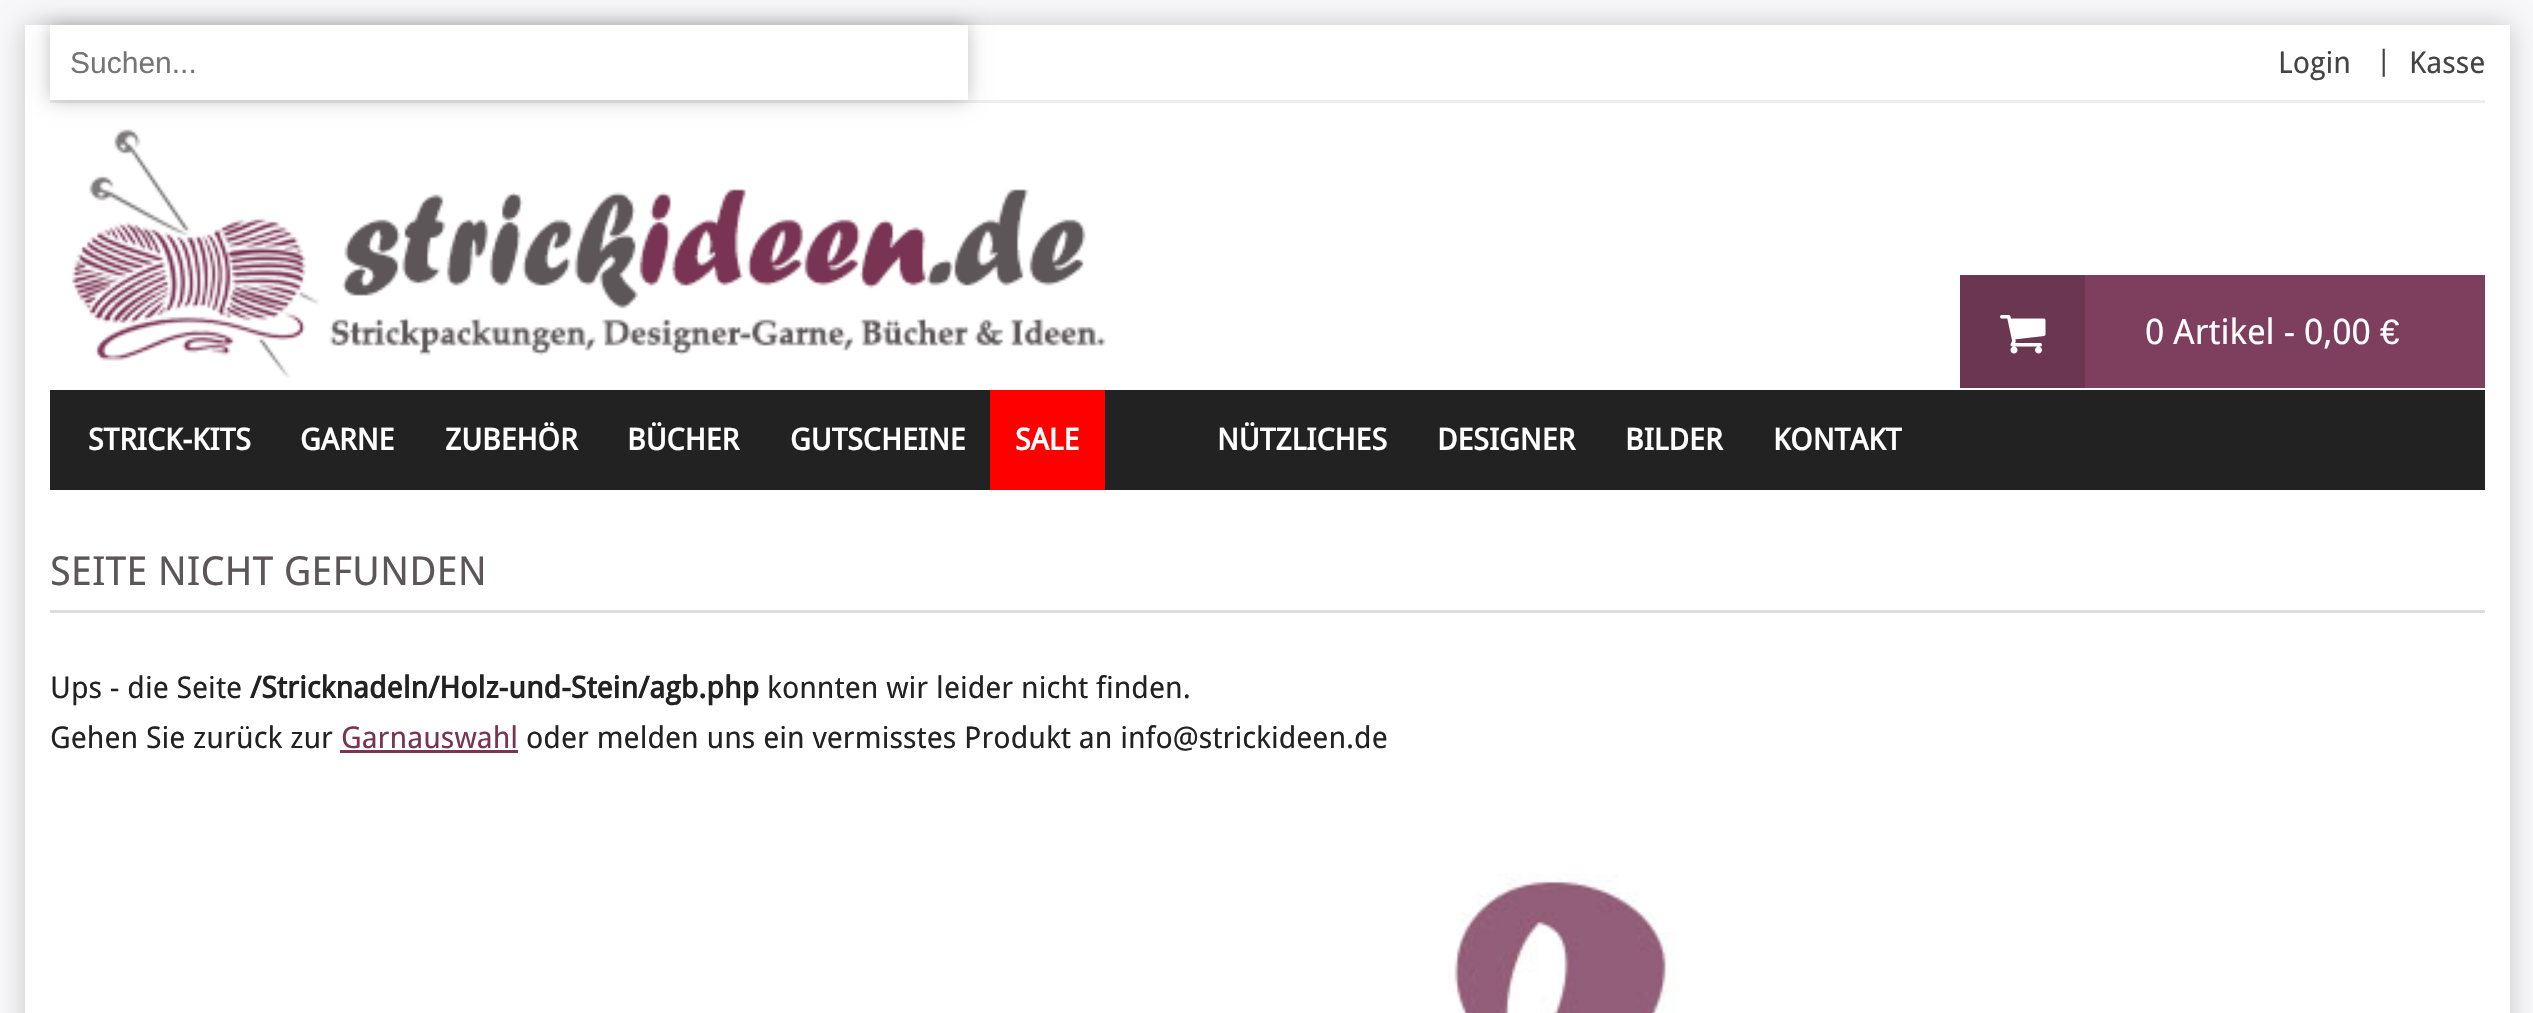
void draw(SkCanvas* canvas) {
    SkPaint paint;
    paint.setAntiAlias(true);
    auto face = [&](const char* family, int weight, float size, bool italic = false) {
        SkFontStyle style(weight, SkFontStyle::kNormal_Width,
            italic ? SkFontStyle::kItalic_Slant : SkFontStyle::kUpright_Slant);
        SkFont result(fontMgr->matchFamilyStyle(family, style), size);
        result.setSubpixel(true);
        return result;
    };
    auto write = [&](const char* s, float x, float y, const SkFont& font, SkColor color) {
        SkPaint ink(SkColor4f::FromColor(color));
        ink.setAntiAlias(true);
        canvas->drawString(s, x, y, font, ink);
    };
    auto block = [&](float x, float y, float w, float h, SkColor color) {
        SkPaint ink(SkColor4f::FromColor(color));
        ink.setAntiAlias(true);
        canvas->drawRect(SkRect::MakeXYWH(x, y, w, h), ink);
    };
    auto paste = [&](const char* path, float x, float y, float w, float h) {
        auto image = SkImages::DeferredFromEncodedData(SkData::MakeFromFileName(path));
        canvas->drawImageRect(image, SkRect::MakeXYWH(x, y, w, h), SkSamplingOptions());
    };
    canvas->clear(SkColorSetRGB(248, 248, 250));
    paint.setColor(SkColorSetARGB(51, 0, 0, 0));
    paint.setMaskFilter(SkMaskFilter::MakeBlur(kNormal_SkBlurStyle, 12.5f));
    canvas->drawRect(SkRect::MakeXYWH(25, 25, 2485, 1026), paint);
    paint.setMaskFilter(nullptr);
    block(25, 25, 2485, 988, SK_ColorWHITE);
    block(50, 100, 2435, 3, SkColorSetRGB(238, 238, 238));
    paint.setColor(SkColorSetARGB(64, 0, 0, 0));
    paint.setMaskFilter(SkMaskFilter::MakeBlur(kNormal_SkBlurStyle, 9));
    canvas->drawRect(SkRect::MakeXYWH(50, 25, 918, 75), paint);
    paint.setMaskFilter(nullptr);
    block(50, 25, 918, 75, SK_ColorWHITE);
    auto kFont1 = face("Liberation Sans", 400, 30);
    write("Suchen...", 70, 73, kFont1, SkColorSetRGB(117, 117, 117));
    auto kFont2 = face("Droid Sans", 400, 30);
    write("Login", 2278, 73, kFont2, SkColorSetRGB(68, 68, 68));
    auto kFont3 = face("Droid Sans", 400, 28);
    write("|", 2376, 70, kFont3, SkColorSetRGB(68, 68, 68));
    write("Kasse", 2409, 73, kFont2, SkColorSetRGB(68, 68, 68));
    paste("pic1.png", 71, 129, 1035, 249);
    block(2085, 275, 400, 113, SkColorSetRGB(126, 63, 94));
    block(1960, 275, 125, 113, SkColorSetRGB(107, 54, 80));
    paste("pic2.png", 2000, 315, 46, 39);
    auto kFont4 = face("Droid Sans", 400, 35);
    write("0 Artikel - 0,00", 2145, 344, kFont4, SK_ColorWHITE);
    auto kFont5 = face("Liberation Sans", 400, 35);
    write("€", 2380, 344, kFont5, SK_ColorWHITE);
    block(50, 390, 2435, 100, SkColorSetRGB(34, 34, 34));
    auto kFont6 = face("Droid Sans", 700, 30);
    write("STRICK-KITS", 88, 450, kFont6, SK_ColorWHITE);
    write("GARNE", 300, 450, kFont6, SK_ColorWHITE);
    write("ZUBEHÖR", 445, 450, kFont6, SK_ColorWHITE);
    write("BÜCHER", 627, 450, kFont6, SK_ColorWHITE);
    write("GUTSCHEINE", 790, 450, kFont6, SK_ColorWHITE);
    block(990, 390, 115, 100, SkColorSetRGB(255, 0, 0));
    write("SALE", 1015, 450, kFont6, SK_ColorWHITE);
    write("NÜTZLICHES", 1217, 450, kFont6, SK_ColorWHITE);
    write("DESIGNER", 1437, 450, kFont6, SK_ColorWHITE);
    write("BILDER", 1625, 450, kFont6, SK_ColorWHITE);
    write("KONTAKT", 1773, 450, kFont6, SK_ColorWHITE);
    block(50, 610, 2435, 3, SkColorSetRGB(221, 221, 221));
    auto kFont7 = face("Droid Sans", 400, 40);
    write("SEITE NICHT GEFUNDEN", 50, 585, kFont7, SkColorSetRGB(93, 86, 88));
    write("Ups - die Seite", 50, 698, kFont2, SkColorSetRGB(34, 34, 34));
    write("/Stricknadeln/Holz-und-Stein/agb.php", 250, 698, kFont6, SkColorSetRGB(34, 34, 34));
    write("konnten wir leider nicht finden.", 767, 698, kFont2, SkColorSetRGB(34, 34, 34));
    write("Gehen Sie zurück zur", 50, 748, kFont2, SkColorSetRGB(34, 34, 34));
    write("Garnauswahl", 341, 748, kFont2, SkColorSetRGB(121, 52, 84));
    block(340, 750, 178, 3, SkColorSetRGB(121, 52, 84));
    write("oder melden uns ein vermisstes Produkt an info@strickideen.de", 526, 748, kFont2, SkColorSetRGB(34, 34, 34));
    paste("pic3.png", 1448, 873, 229, 140);
}
